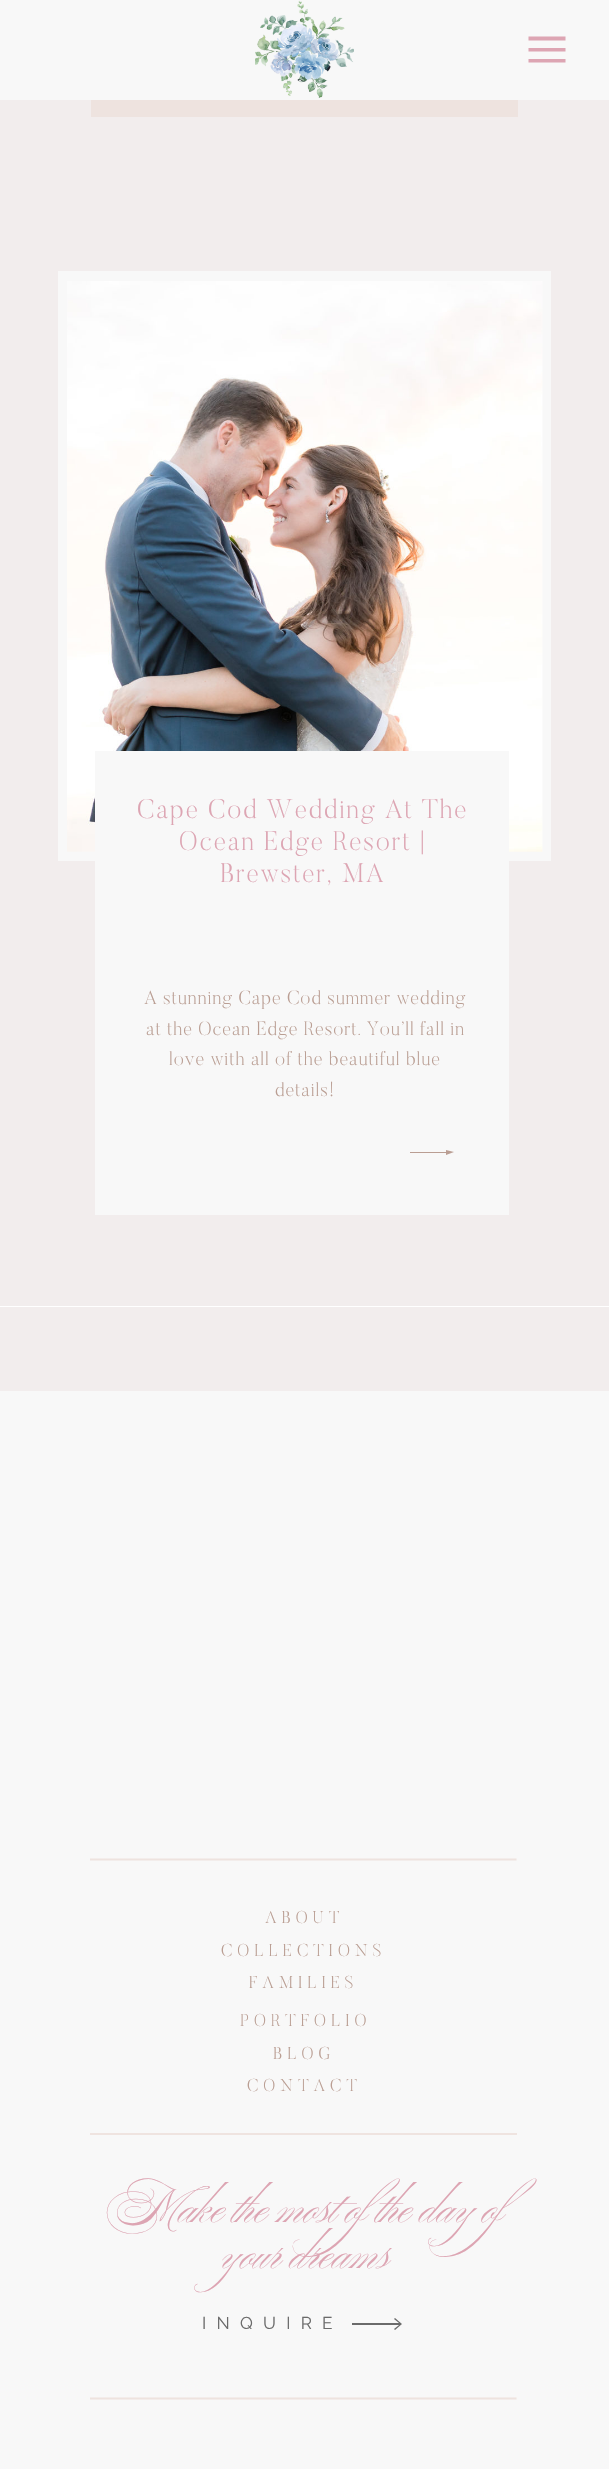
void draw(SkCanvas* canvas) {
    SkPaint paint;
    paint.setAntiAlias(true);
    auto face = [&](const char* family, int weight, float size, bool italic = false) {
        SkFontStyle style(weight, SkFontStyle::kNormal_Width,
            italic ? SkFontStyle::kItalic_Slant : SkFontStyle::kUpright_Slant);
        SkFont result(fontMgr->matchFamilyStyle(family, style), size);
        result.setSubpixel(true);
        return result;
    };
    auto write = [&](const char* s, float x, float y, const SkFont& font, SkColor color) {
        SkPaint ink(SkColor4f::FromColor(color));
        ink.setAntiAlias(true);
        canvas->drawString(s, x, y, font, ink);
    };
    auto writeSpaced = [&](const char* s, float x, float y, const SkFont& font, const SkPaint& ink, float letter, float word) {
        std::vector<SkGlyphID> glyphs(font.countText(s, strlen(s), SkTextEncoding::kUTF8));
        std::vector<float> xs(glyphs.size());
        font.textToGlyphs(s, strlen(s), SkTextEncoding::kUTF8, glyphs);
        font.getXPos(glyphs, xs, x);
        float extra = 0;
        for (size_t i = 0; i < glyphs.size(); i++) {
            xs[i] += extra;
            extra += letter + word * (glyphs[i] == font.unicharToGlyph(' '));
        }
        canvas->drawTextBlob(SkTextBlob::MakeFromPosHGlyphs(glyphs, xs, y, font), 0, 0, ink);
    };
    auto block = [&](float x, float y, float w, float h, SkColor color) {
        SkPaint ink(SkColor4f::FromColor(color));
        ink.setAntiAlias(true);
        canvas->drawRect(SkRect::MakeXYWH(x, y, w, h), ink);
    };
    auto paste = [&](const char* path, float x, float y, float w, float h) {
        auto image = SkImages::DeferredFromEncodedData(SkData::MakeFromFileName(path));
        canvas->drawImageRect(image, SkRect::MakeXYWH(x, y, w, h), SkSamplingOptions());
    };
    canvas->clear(SK_ColorWHITE);
    block(0, 0, 609, 100, SkColorSetRGB(248, 248, 248));
    paste("pic1.png", 255, 0, 99, 98);
    paint.setColor(SkColorSetRGB(221, 165, 179));
    canvas->drawPath(SkPathBuilder().moveTo(528.5f, 48).lineTo(565.5f, 48).lineTo(565.5f, 51.5f).lineTo(528.5f, 51.5f).close().moveTo(528.5f, 36.5f).lineTo(565.5f, 36.5f).lineTo(565.5f, 40.5f).lineTo(528.5f, 40.5f).close().moveTo(528.5f, 59).lineTo(565.5f, 59).lineTo(565.5f, 62.5f).lineTo(528.5f, 62.5f).close().detach(), paint);
    block(0, 100, 609, 1206, SkColorSetRGB(242, 237, 237));
    block(91, 100, 427, 17, SkColorSetRGB(238, 227, 223));
    block(58, 271, 493, 590, SkColorSetRGB(248, 248, 248));
    paste("pic2.png", 67, 281, 476, 571);
    block(95, 751, 414, 464, SkColorSetRGB(248, 248, 248));
    auto kFont1 = face("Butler", 200, 26.6f);
    writeSpaced("Cape Cod Wedding At The", 137, 818, kFont1, paint, 1.9f, 0);
    writeSpaced("Ocean Edge Resort |", 179, 850, kFont1, paint, 1.9f, 0);
    writeSpaced("Brewster, MA", 220, 882, kFont1, paint, 1.9f, 0);
    auto kFont2 = face("Butler", 200, 19);
    paint.setColor(SkColorSetRGB(186, 158, 147));
    writeSpaced("A stunning Cape Cod summer wedding", 144, 1004, kFont2, paint, 0.95f, 0);
    writeSpaced("at the Ocean Edge Resort. You’ll fall in", 146, 1035, kFont2, paint, 0.95f, 0);
    writeSpaced("love with all of the beautiful blue", 169, 1065, kFont2, paint, 0.95f, 0);
    writeSpaced("details!", 275, 1096, kFont2, paint, 0.95f, 0);
    canvas->drawPath(SkPathBuilder().moveTo(454, 1152).lineTo(446, 1150).lineTo(446, 1152).lineTo(410, 1152).lineTo(410, 1153).lineTo(446, 1153).lineTo(446, 1155).close().detach(), paint);
    block(0, 1307, 609, 84, SkColorSetRGB(242, 237, 237));
    block(0, 1391, 609, 1078, SkColorSetRGB(248, 248, 248));
    paint.setStyle(SkPaint::kStroke_Style);
    paint.setStrokeWidth(1.9f);
    paint.setColor(SkColorSetRGB(238, 227, 223));
    canvas->drawPath(SkPathBuilder().moveTo(90, 1859.5f).lineTo(516.5f, 1859.5f).detach(), paint);
    auto kFont3 = face("Butler", 200, 17.1f);
    paint.setStyle(SkPaint::kFill_Style);
    paint.setColor(SkColorSetRGB(186, 158, 147));
    writeSpaced("ABOUT", 265, 1923, kFont3, paint, 5.1f, 0);
    writeSpaced("COLLECTIONS", 221, 1956, kFont3, paint, 5.1f, 0);
    writeSpaced("FAMILIES", 249, 1988, kFont3, paint, 5.1f, 0);
    writeSpaced("PORTFOLIO", 240, 2026, kFont3, paint, 5.1f, 0);
    writeSpaced("BLOG", 273, 2059, kFont3, paint, 5.1f, 0);
    writeSpaced("CONTACT", 247, 2091, kFont3, paint, 5.1f, 0);
    block(90, 2133, 427, 2, SkColorSetRGB(239, 228, 224));
    auto kFont4 = face("Ballet", 400, 45.75f);
    write("Make the most of the day of", 108, 2222, kFont4, SkColorSetRGB(221, 165, 179));
    write("your dreams", 222, 2268, kFont4, SkColorSetRGB(221, 165, 179));
    auto kFont5 = face("Raleway", 100, 17.1f);
    paint.setColor(SkColorSetRGB(107, 107, 107));
    writeSpaced("INQUIRE", 202, 2329, kFont5, paint, 10.25f, 0);
    canvas->drawPath(SkPathBuilder().moveTo(395, 2318).lineTo(394, 2319).lineTo(399, 2323).lineTo(352, 2323).lineTo(352, 2325).lineTo(399, 2325).lineTo(394, 2329).lineTo(395, 2330).lineTo(402, 2324).close().detach(), paint);
    paint.setStyle(SkPaint::kStroke_Style);
    paint.setColor(SkColorSetRGB(238, 227, 223));
    canvas->drawPath(SkPathBuilder().moveTo(90, 2398.5f).lineTo(516.5f, 2398.5f).detach(), paint);
}
